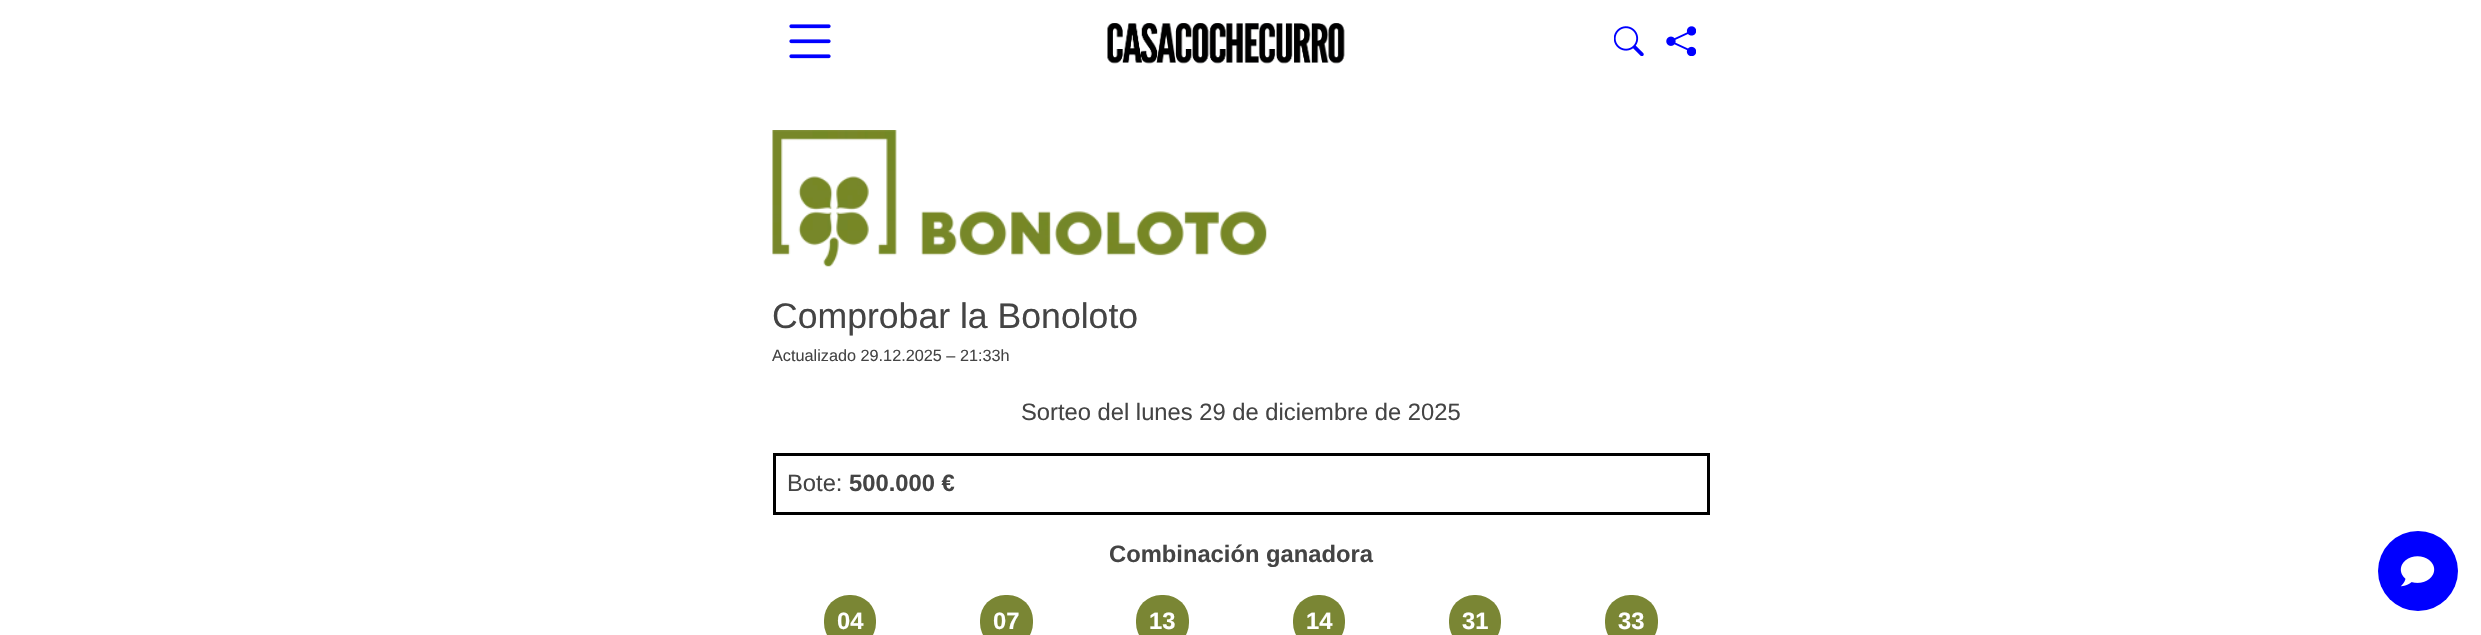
void draw(SkCanvas* canvas) {
    SkPaint paint;
    paint.setAntiAlias(true);
    auto face = [&](const char* family, int weight, float size, bool italic = false) {
        SkFontStyle style(weight, SkFontStyle::kNormal_Width,
            italic ? SkFontStyle::kItalic_Slant : SkFontStyle::kUpright_Slant);
        SkFont result(fontMgr->matchFamilyStyle(family, style), size);
        result.setSubpixel(true);
        return result;
    };
    auto write = [&](const char* s, float x, float y, const SkFont& font, SkColor color) {
        SkPaint ink(SkColor4f::FromColor(color));
        ink.setAntiAlias(true);
        canvas->drawString(s, x, y, font, ink);
    };
    auto card = [&](float x, float y, float w, float h, float radius, SkColor color) {
        SkPaint ink(SkColor4f::FromColor(color));
        ink.setAntiAlias(true);
        canvas->drawRoundRect(SkRect::MakeXYWH(x, y, w, h), radius, radius, ink);
    };
    auto paste = [&](const char* path, float x, float y, float w, float h) {
        auto image = SkImages::DeferredFromEncodedData(SkData::MakeFromFileName(path));
        canvas->drawImageRect(image, SkRect::MakeXYWH(x, y, w, h), SkSamplingOptions());
    };
    canvas->clear(SK_ColorWHITE);
    paste("pic1.png", 789, 24, 42, 35);
    paste("pic2.png", 1107, 23, 238, 41);
    paste("pic3.png", 1614, 26, 30, 30);
    paste("pic4.png", 1666, 26, 30, 30);
    paste("pic5.png", 772, 130, 495, 137);
    auto kFont1 = face("Arimo", 400, 35.6f);
    write("Comprobar la Bonoloto", 772, 328, kFont1, SkColorSetRGB(68, 68, 68));
    auto kFont2 = face("Arimo", 400, 16.25f);
    write("Actualizado 29.12.2025 – 21:33h", 772, 361, kFont2, SkColorSetRGB(68, 68, 68));
    auto kFont3 = face("Arimo", 400, 23.75f);
    write("Sorteo del lunes 29 de diciembre de 2025", 1021, 420, kFont3, SkColorSetRGB(68, 68, 68));
    paint.setStyle(SkPaint::kStroke_Style);
    paint.setStrokeWidth(3);
    paint.setColor(SK_ColorBLACK);
    canvas->drawRect(SkRect::MakeXYWH(774.5f, 454.5f, 934, 59), paint);
    write("Bote:", 787, 491, kFont3, SkColorSetRGB(68, 68, 68));
    auto kFont4 = face("Arimo", 700, 23.75f);
    write("500.000 €", 849, 491, kFont4, SkColorSetRGB(68, 68, 68));
    write("Combinación ganadora", 1109, 562, kFont4, SkColorSetRGB(68, 68, 68));
    card(824, 595, 52, 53, 25, SkColorSetRGB(122, 134, 52));
    write("04", 837, 629, kFont4, SK_ColorWHITE);
    card(980, 595, 53, 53, 25, SkColorSetRGB(122, 134, 52));
    write("07", 993, 629, kFont4, SK_ColorWHITE);
    card(1136, 595, 53, 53, 25, SkColorSetRGB(122, 134, 52));
    write("13", 1149, 629, kFont4, SK_ColorWHITE);
    card(1293, 595, 52, 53, 25, SkColorSetRGB(122, 134, 52));
    write("14", 1306, 629, kFont4, SK_ColorWHITE);
    card(1449, 595, 52, 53, 25, SkColorSetRGB(122, 134, 52));
    write("31", 1462, 629, kFont4, SK_ColorWHITE);
    card(1605, 595, 53, 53, 25, SkColorSetRGB(122, 134, 52));
    write("33", 1618, 629, kFont4, SK_ColorWHITE);
    paint.setStyle(SkPaint::kFill_Style);
    paint.setColor(SkColorSetRGB(0, 0, 255));
    canvas->drawCircle(2418, 571, 40, paint);
    paste("pic6.png", 2400, 556, 35, 31);
}
